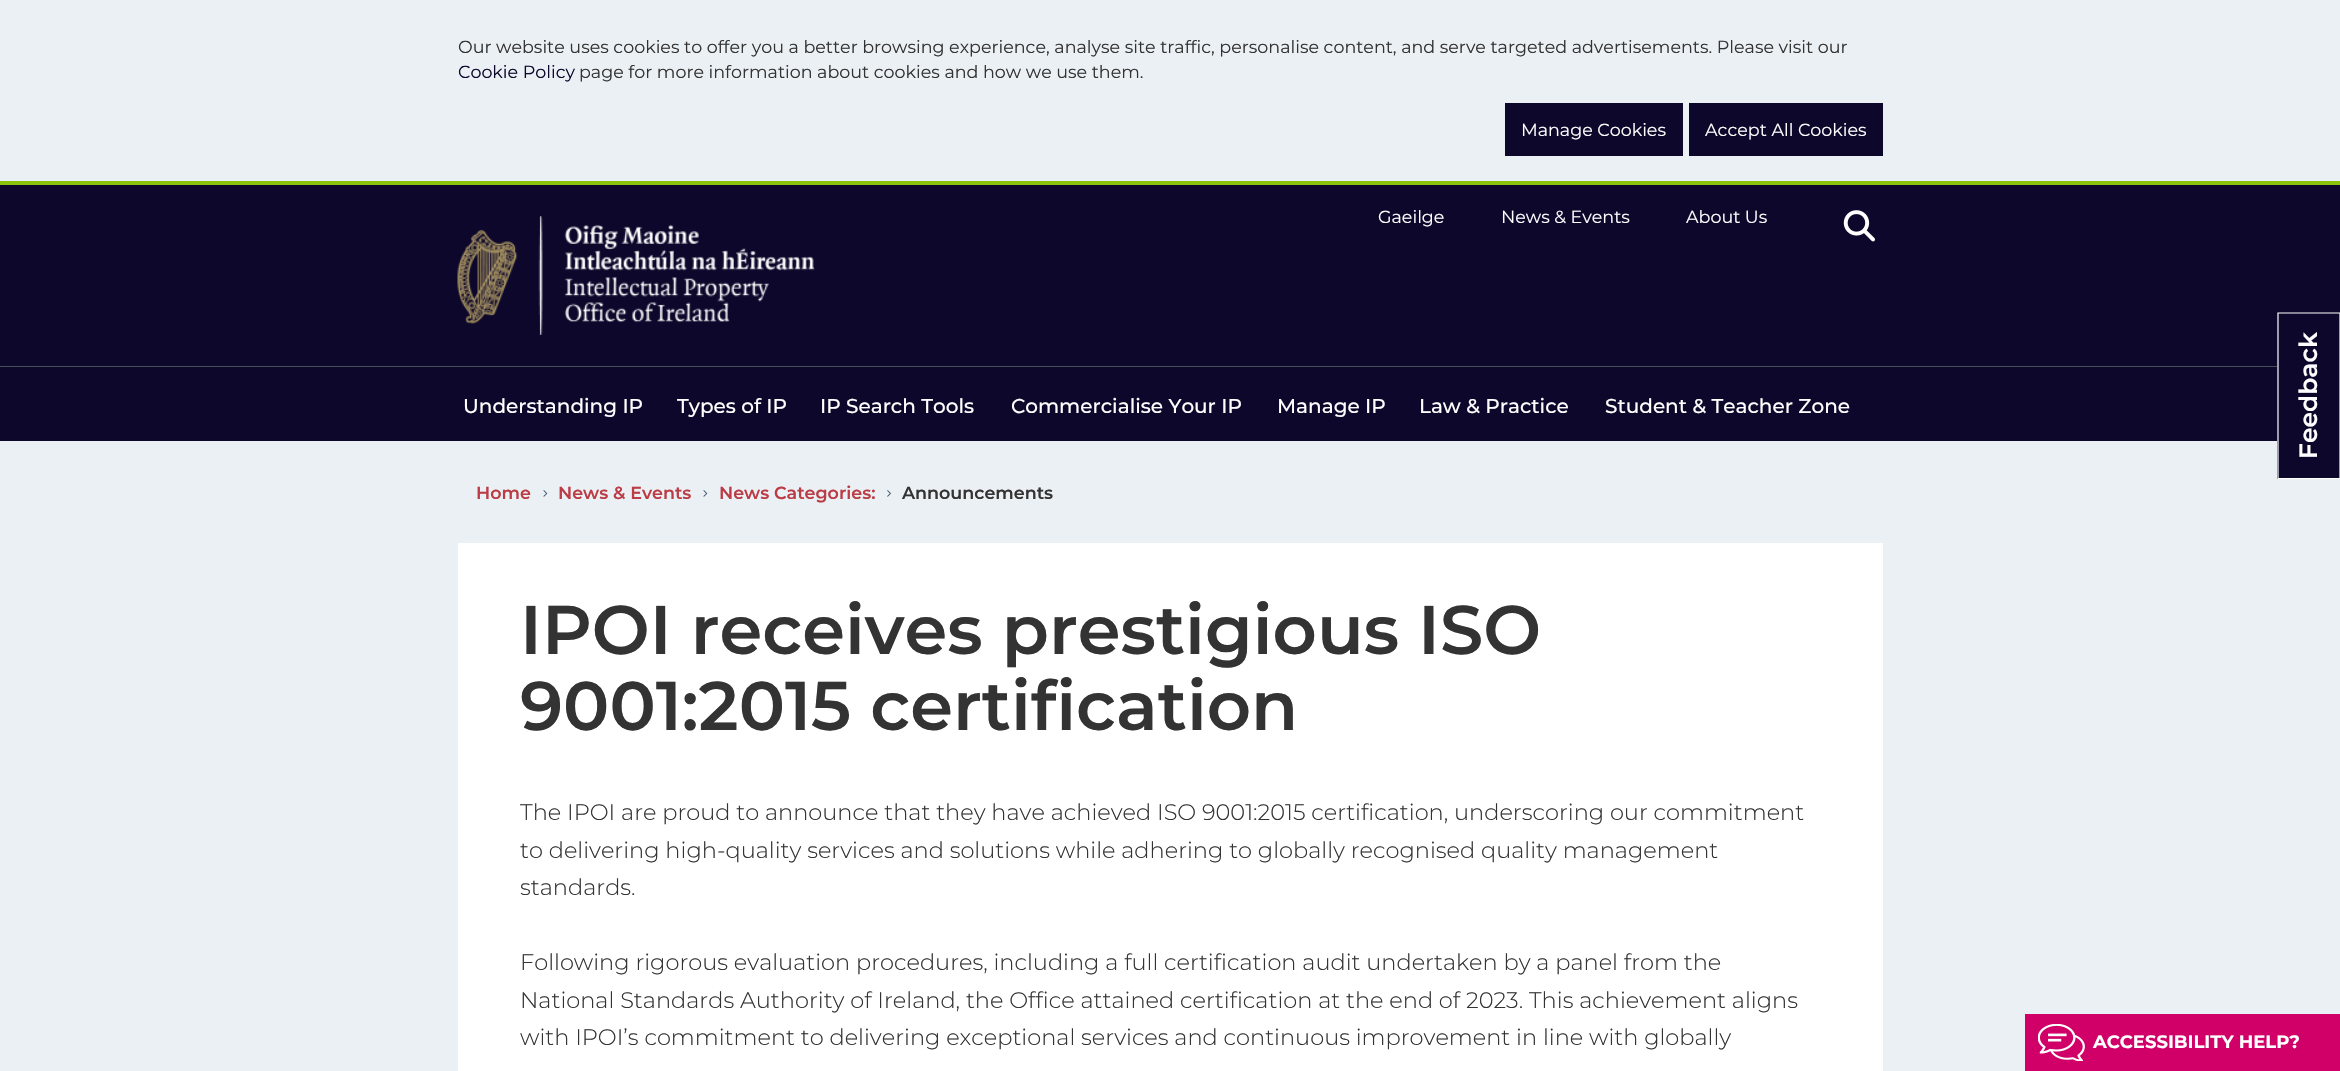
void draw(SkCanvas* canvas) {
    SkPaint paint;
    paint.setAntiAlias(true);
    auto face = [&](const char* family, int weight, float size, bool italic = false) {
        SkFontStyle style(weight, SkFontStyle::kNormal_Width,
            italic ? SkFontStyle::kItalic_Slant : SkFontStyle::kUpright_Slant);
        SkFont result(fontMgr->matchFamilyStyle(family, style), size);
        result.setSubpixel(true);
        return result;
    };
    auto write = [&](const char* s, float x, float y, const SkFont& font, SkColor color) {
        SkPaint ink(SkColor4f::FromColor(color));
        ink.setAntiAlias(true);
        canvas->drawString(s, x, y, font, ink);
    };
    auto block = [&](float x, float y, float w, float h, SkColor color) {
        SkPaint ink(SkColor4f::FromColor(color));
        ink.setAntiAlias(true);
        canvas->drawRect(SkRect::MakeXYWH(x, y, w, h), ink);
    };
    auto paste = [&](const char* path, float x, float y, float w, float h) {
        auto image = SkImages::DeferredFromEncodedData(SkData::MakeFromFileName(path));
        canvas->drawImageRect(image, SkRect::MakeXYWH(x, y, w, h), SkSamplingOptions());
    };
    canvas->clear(SkColorSetRGB(235, 240, 245));
    block(0, 181, 2340, 4, SkColorSetRGB(137, 195, 10));
    auto kFont1 = face("Montserrat", 400, 17.5f);
    write("Our website uses cookies to offer you a better browsing experience, analyse site traffic, personalise content, and serve targeted advertisements. Please visit our", 458, 53, kFont1, SkColorSetRGB(51, 51, 51));
    write("Cookie Policy", 458, 78, kFont1, SkColorSetRGB(13, 7, 43));
    write("page for more information about cookies and how we use them.", 579, 78, kFont1, SkColorSetRGB(51, 51, 51));
    block(1505, 103, 178, 53, SkColorSetRGB(13, 7, 43));
    write("Manage Cookies", 1521, 136, kFont1, SK_ColorWHITE);
    block(1689, 103, 194, 53, SkColorSetRGB(13, 7, 43));
    write("Accept All Cookies", 1705, 136, kFont1, SK_ColorWHITE);
    block(0, 185, 2340, 256, SkColorSetRGB(13, 7, 43));
    paste("pic1.png", 457, 216, 358, 119);
    write("Gaeilge", 1378, 223, kFont1, SK_ColorWHITE);
    write("News & Events", 1501, 223, kFont1, SK_ColorWHITE);
    write("About Us", 1686, 223, kFont1, SK_ColorWHITE);
    paste("pic2.png", 1843, 210, 32, 32);
    block(0, 366, 2277, 1, SkColorSetRGB(72, 78, 93));
    auto kFont2 = face("Montserrat", 500, 20);
    write("Understanding IP", 463, 413, kFont2, SK_ColorWHITE);
    write("Types of IP", 677, 413, kFont2, SK_ColorWHITE);
    write("IP Search Tools", 820, 413, kFont2, SK_ColorWHITE);
    write("Commercialise Your IP", 1011, 413, kFont2, SK_ColorWHITE);
    write("Manage IP", 1277, 413, kFont2, SK_ColorWHITE);
    write("Law & Practice", 1419, 413, kFont2, SK_ColorWHITE);
    write("Student & Teacher Zone", 1605, 413, kFont2, SK_ColorWHITE);
    auto kFont3 = face("Montserrat", 600, 17.5f);
    write("Home", 476, 499, kFont3, SkColorSetRGB(187, 60, 69));
    paste("pic3.png", 543, 490, 5, 7);
    write("News & Events", 558, 499, kFont3, SkColorSetRGB(187, 60, 69));
    paste("pic3.png", 703, 490, 5, 7);
    write("News Categories:", 719, 499, kFont3, SkColorSetRGB(187, 60, 69));
    paste("pic4.png", 887, 490, 4, 7);
    write("Announcements", 902, 499, kFont3, SkColorSetRGB(51, 51, 51));
    block(458, 543, 1425, 528, SK_ColorWHITE);
    auto kFont4 = face("Montserrat", 600, 68.75f);
    write("IPOI receives prestigious ISO", 520, 654, kFont4, SkColorSetRGB(51, 51, 51));
    write("9001:2015 certification", 520, 730, kFont4, SkColorSetRGB(51, 51, 51));
    auto kFont5 = face("Montserrat", 300, 22.5f);
    write("The IPOI are proud to announce that they have achieved ISO 9001:2015 certification, underscoring our commitment", 520, 820, kFont5, SkColorSetRGB(51, 51, 51));
    write("to delivering high-quality services and solutions while adhering to globally recognised quality management", 520, 858, kFont5, SkColorSetRGB(51, 51, 51));
    write("standards.", 520, 895, kFont5, SkColorSetRGB(51, 51, 51));
    write("Following rigorous evaluation procedures, including a full certification audit undertaken by a panel from the", 520, 970, kFont5, SkColorSetRGB(51, 51, 51));
    write("National Standards Authority of Ireland, the Office attained certification at the end of 2023. This achievement aligns", 520, 1008, kFont5, SkColorSetRGB(51, 51, 51));
    write("with IPOI’s commitment to delivering exceptional services and continuous improvement in line with globally", 520, 1045, kFont5, SkColorSetRGB(51, 51, 51));
    block(2025, 1014, 315, 57, SkColorSetRGB(208, 0, 104));
    paste("pic5.png", 2038, 1024, 47, 37);
    auto kFont6 = face("Montserrat", 700, 18);
    write("ACCESSIBILITY HELP?", 2093, 1048, kFont6, SK_ColorWHITE);
    block(2277, 441, 63, 38, SkColorSetRGB(13, 7, 43));
    paint.setStyle(SkPaint::kStroke_Style);
    paint.setStrokeWidth(1.2f);
    paint.setColor(SK_ColorWHITE);
    canvas->drawPath(SkPathBuilder().moveTo(2278, 478.5f).lineTo(2278, 313).lineTo(2340, 313).lineTo(2340, 478.5f).close().detach(), paint);
    auto kFont7 = face("Montserrat", 600, 25);
    canvas->save();
    canvas->rotate(-90, 2317, 459);
    write("Feedback", 2317, 459, kFont7, SK_ColorWHITE);
    canvas->restore();
}
